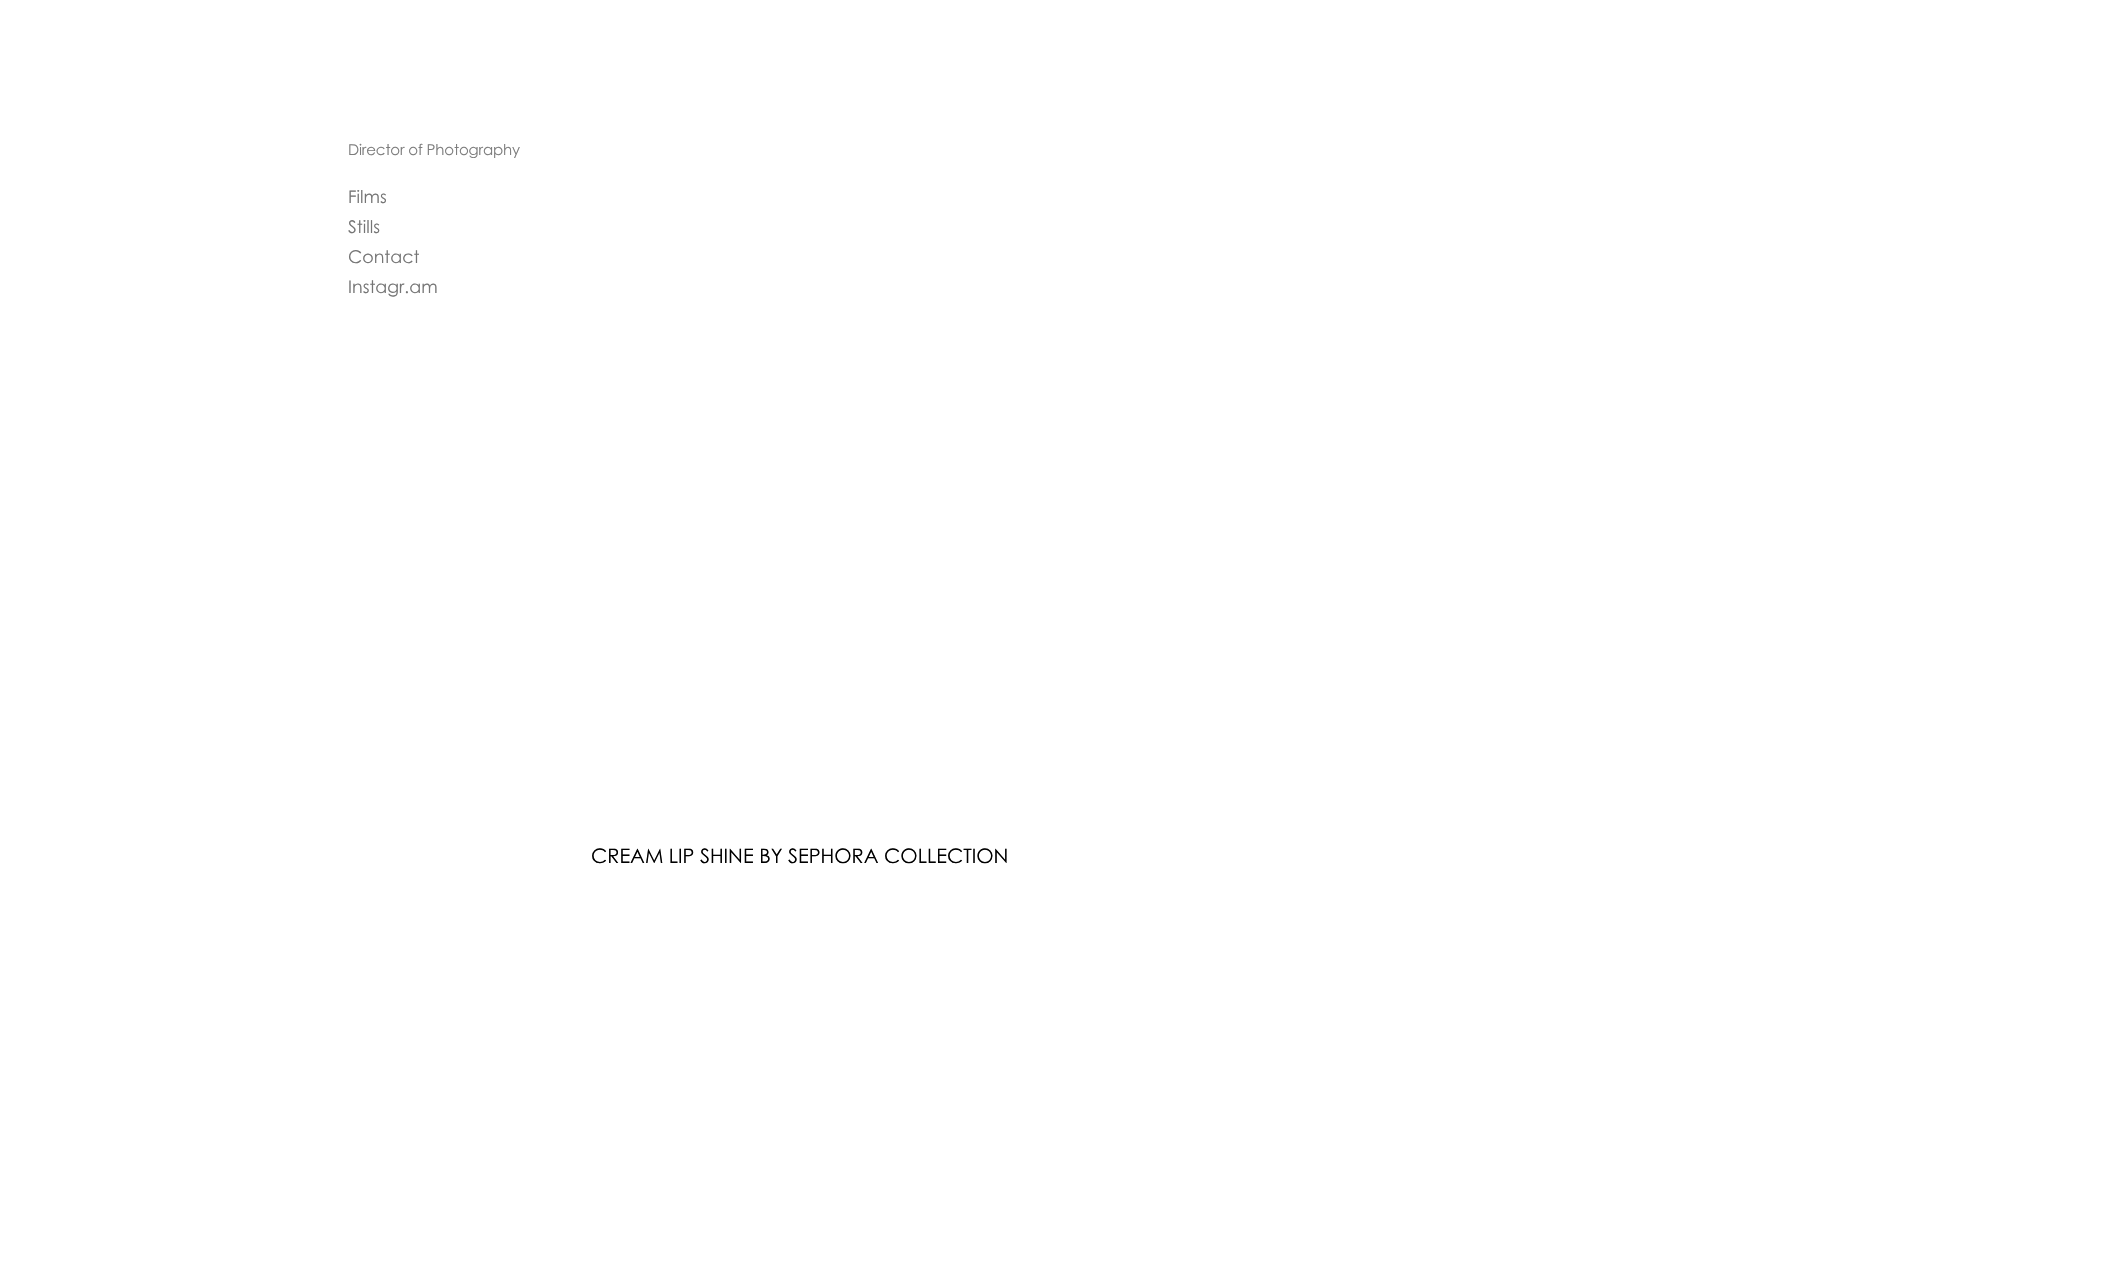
void draw(SkCanvas* canvas) {
    SkPaint paint;
    paint.setAntiAlias(true);
    auto face = [&](const char* family, int weight, float size, bool italic = false) {
        SkFontStyle style(weight, SkFontStyle::kNormal_Width,
            italic ? SkFontStyle::kItalic_Slant : SkFontStyle::kUpright_Slant);
        SkFont result(fontMgr->matchFamilyStyle(family, style), size);
        result.setSubpixel(true);
        return result;
    };
    auto write = [&](const char* s, float x, float y, const SkFont& font, SkColor color) {
        SkPaint ink(SkColor4f::FromColor(color));
        ink.setAntiAlias(true);
        canvas->drawString(s, x, y, font, ink);
    };
    auto writeSpaced = [&](const char* s, float x, float y, const SkFont& font, const SkPaint& ink, float letter, float word) {
        std::vector<SkGlyphID> glyphs(font.countText(s, strlen(s), SkTextEncoding::kUTF8));
        std::vector<float> xs(glyphs.size());
        font.textToGlyphs(s, strlen(s), SkTextEncoding::kUTF8, glyphs);
        font.getXPos(glyphs, xs, x);
        float extra = 0;
        for (size_t i = 0; i < glyphs.size(); i++) {
            xs[i] += extra;
            extra += letter + word * (glyphs[i] == font.unicharToGlyph(' '));
        }
        canvas->drawTextBlob(SkTextBlob::MakeFromPosHGlyphs(glyphs, xs, y, font), 0, 0, ink);
    };
    canvas->clear(SK_ColorWHITE);
    auto kFont1 = face("Century Gothic", 400, 15);
    paint.setColor(SkColorSetRGB(125, 125, 125));
    writeSpaced("Director of Photography", 348, 155, kFont1, paint, -0.15f, 0);
    auto kFont2 = face("Century Gothic", 400, 17.5f);
    write("Films", 348, 203, kFont2, SkColorSetRGB(117, 117, 117));
    write("Stills", 348, 233, kFont2, SkColorSetRGB(117, 117, 117));
    write("Contact", 348, 263, kFont2, SkColorSetRGB(117, 117, 117));
    write("Instagr.am", 348, 293, kFont2, SkColorSetRGB(117, 117, 117));
    auto kFont3 = face("Century Gothic", 400, 20);
    write("CREAM LIP SHINE BY SEPHORA COLLECTION", 591, 863, kFont3, SK_ColorBLACK);
}
